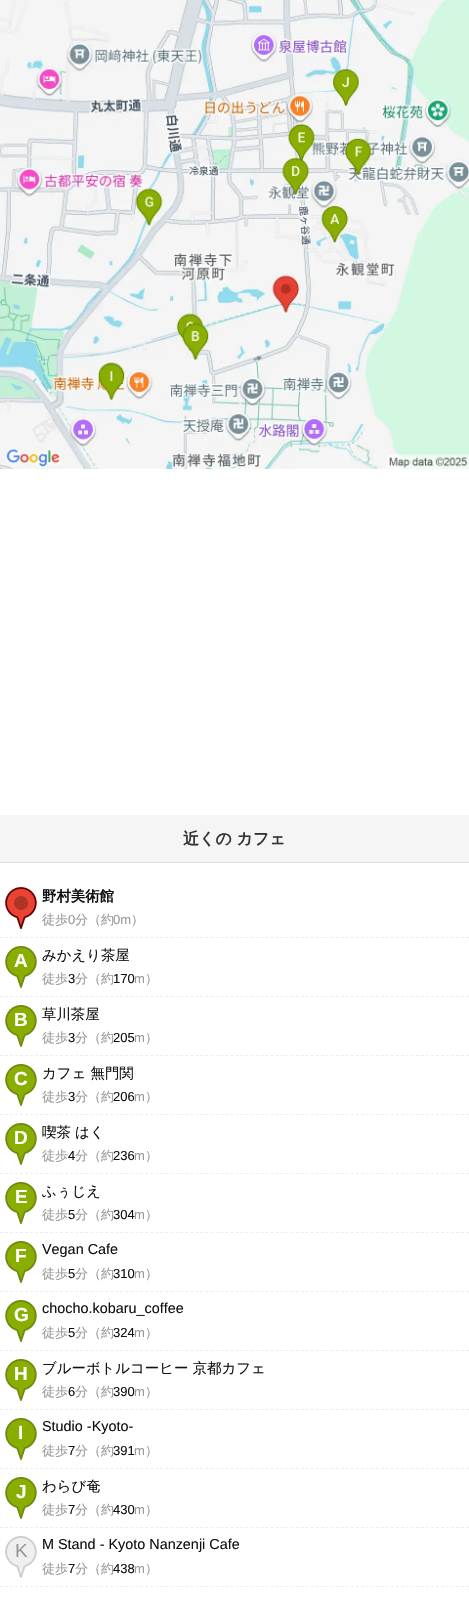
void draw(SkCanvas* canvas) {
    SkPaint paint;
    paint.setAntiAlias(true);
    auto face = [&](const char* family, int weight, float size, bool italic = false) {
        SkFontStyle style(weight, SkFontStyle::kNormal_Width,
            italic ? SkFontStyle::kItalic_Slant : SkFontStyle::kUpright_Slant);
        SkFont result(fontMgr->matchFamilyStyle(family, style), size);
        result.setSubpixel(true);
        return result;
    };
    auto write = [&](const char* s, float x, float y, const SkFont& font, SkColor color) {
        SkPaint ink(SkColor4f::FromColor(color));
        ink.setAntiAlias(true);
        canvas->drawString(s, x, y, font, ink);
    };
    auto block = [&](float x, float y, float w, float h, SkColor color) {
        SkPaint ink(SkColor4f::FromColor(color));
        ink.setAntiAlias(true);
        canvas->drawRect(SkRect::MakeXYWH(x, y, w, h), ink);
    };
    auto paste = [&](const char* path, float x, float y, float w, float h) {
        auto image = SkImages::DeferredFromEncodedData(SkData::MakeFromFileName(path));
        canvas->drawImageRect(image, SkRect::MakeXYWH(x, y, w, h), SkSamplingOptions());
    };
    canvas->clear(SK_ColorWHITE);
    paste("pic1.png", 0, 0, 469, 469);
    block(0, 815, 469, 47, SkColorSetRGB(245, 245, 245));
    block(0, 862, 469, 1, SkColorSetRGB(221, 221, 221));
    auto kFont1 = face("WenQuanYi Zen Hei", 700, 16);
    write("近くの カフェ", 183, 844, kFont1, SkColorSetRGB(51, 51, 51));
    paint.setStyle(SkPaint::kStroke_Style);
    paint.setStrokeWidth(1);
    paint.setColor(SkColorSetRGB(238, 238, 238));
    paint.setPathEffect(SkDashPathEffect::Make({{3, 2.01f}}, 0));
    canvas->drawPath(SkPathBuilder().moveTo(0, 937.5f).lineTo(469, 937.5f).detach(), paint);
    paint.setPathEffect(nullptr);
    paste("pic2.png", 5, 887, 32, 42);
    auto kFont2 = face("WenQuanYi Zen Hei", 700, 14.4f);
    write("野村美術館", 42, 901, kFont2, SkColorSetRGB(17, 17, 17));
    auto kFont3 = face("WenQuanYi Zen Hei", 500, 13);
    write("徒歩", 42, 924, kFont3, SkColorSetRGB(153, 153, 153));
    auto kFont4 = face("Liberation Sans", 400, 13);
    write("0", 68, 924, kFont4, SkColorSetRGB(153, 153, 153));
    write("分（約", 75, 924, kFont3, SkColorSetRGB(153, 153, 153));
    write("0m", 113, 924, kFont4, SkColorSetRGB(153, 153, 153));
    write("）", 131, 924, kFont3, SkColorSetRGB(153, 153, 153));
    paint.setPathEffect(SkDashPathEffect::Make({{3, 2.01f}}, 0));
    canvas->drawPath(SkPathBuilder().moveTo(0, 996.5f).lineTo(469, 996.5f).detach(), paint);
    paint.setPathEffect(nullptr);
    paste("pic3.png", 5, 946, 32, 42);
    auto kFont5 = face("Liberation Sans", 700, 19);
    write("A", 14, 967, kFont5, SK_ColorWHITE);
    auto kFont6 = face("WenQuanYi Zen Hei", 500, 14.4f);
    write("みかえり茶屋", 42, 960, kFont6, SkColorSetRGB(17, 17, 17));
    write("徒歩", 42, 983, kFont3, SkColorSetRGB(153, 153, 153));
    write("3", 68, 983, kFont4, SkColorSetRGB(17, 17, 17));
    write("分（約", 75, 983, kFont3, SkColorSetRGB(153, 153, 153));
    write("170", 113, 983, kFont4, SkColorSetRGB(17, 17, 17));
    write("m", 134, 983, kFont4, SkColorSetRGB(153, 153, 153));
    write("）", 145, 983, kFont3, SkColorSetRGB(153, 153, 153));
    paint.setPathEffect(SkDashPathEffect::Make({{3, 2.01f}}, 0));
    canvas->drawPath(SkPathBuilder().moveTo(0, 1055.5f).lineTo(469, 1055.5f).detach(), paint);
    paint.setPathEffect(nullptr);
    paste("pic3.png", 5, 1005, 32, 42);
    write("B", 14, 1026, kFont5, SK_ColorWHITE);
    write("草川茶屋", 42, 1019, kFont6, SkColorSetRGB(17, 17, 17));
    write("徒歩", 42, 1042, kFont3, SkColorSetRGB(153, 153, 153));
    write("3", 68, 1042, kFont4, SkColorSetRGB(17, 17, 17));
    write("分（約", 75, 1042, kFont3, SkColorSetRGB(153, 153, 153));
    write("205", 113, 1042, kFont4, SkColorSetRGB(17, 17, 17));
    write("m", 134, 1042, kFont4, SkColorSetRGB(153, 153, 153));
    write("）", 145, 1042, kFont3, SkColorSetRGB(153, 153, 153));
    paint.setPathEffect(SkDashPathEffect::Make({{3, 2.01f}}, 0));
    canvas->drawPath(SkPathBuilder().moveTo(0, 1114.5f).lineTo(469, 1114.5f).detach(), paint);
    paint.setPathEffect(nullptr);
    paste("pic3.png", 5, 1064, 32, 42);
    write("C", 14, 1085, kFont5, SK_ColorWHITE);
    write("カフェ 無門関", 42, 1078, kFont6, SkColorSetRGB(17, 17, 17));
    write("徒歩", 42, 1101, kFont3, SkColorSetRGB(153, 153, 153));
    write("3", 68, 1101, kFont4, SkColorSetRGB(17, 17, 17));
    write("分（約", 75, 1101, kFont3, SkColorSetRGB(153, 153, 153));
    write("206", 113, 1101, kFont4, SkColorSetRGB(17, 17, 17));
    write("m", 134, 1101, kFont4, SkColorSetRGB(153, 153, 153));
    write("）", 145, 1101, kFont3, SkColorSetRGB(153, 153, 153));
    paint.setPathEffect(SkDashPathEffect::Make({{3, 2.01f}}, 0));
    canvas->drawPath(SkPathBuilder().moveTo(0, 1173.5f).lineTo(469, 1173.5f).detach(), paint);
    paint.setPathEffect(nullptr);
    paste("pic3.png", 5, 1123, 32, 42);
    write("D", 14, 1144, kFont5, SK_ColorWHITE);
    write("喫茶 はく", 42, 1137, kFont6, SkColorSetRGB(17, 17, 17));
    write("徒歩", 42, 1160, kFont3, SkColorSetRGB(153, 153, 153));
    write("4", 68, 1160, kFont4, SkColorSetRGB(17, 17, 17));
    write("分（約", 75, 1160, kFont3, SkColorSetRGB(153, 153, 153));
    write("236", 113, 1160, kFont4, SkColorSetRGB(17, 17, 17));
    write("m", 134, 1160, kFont4, SkColorSetRGB(153, 153, 153));
    write("）", 145, 1160, kFont3, SkColorSetRGB(153, 153, 153));
    paint.setPathEffect(SkDashPathEffect::Make({{3, 2.01f}}, 0));
    canvas->drawPath(SkPathBuilder().moveTo(0, 1232.5f).lineTo(469, 1232.5f).detach(), paint);
    paint.setPathEffect(nullptr);
    paste("pic3.png", 5, 1182, 32, 42);
    write("E", 15, 1203, kFont5, SK_ColorWHITE);
    write("ふぅじえ", 42, 1196, kFont6, SkColorSetRGB(17, 17, 17));
    write("徒歩", 42, 1219, kFont3, SkColorSetRGB(153, 153, 153));
    write("5", 68, 1219, kFont4, SkColorSetRGB(17, 17, 17));
    write("分（約", 75, 1219, kFont3, SkColorSetRGB(153, 153, 153));
    write("304", 113, 1219, kFont4, SkColorSetRGB(17, 17, 17));
    write("m", 134, 1219, kFont4, SkColorSetRGB(153, 153, 153));
    write("）", 145, 1219, kFont3, SkColorSetRGB(153, 153, 153));
    paint.setPathEffect(SkDashPathEffect::Make({{3, 2.01f}}, 0));
    canvas->drawPath(SkPathBuilder().moveTo(0, 1291.5f).lineTo(469, 1291.5f).detach(), paint);
    paint.setPathEffect(nullptr);
    paste("pic3.png", 5, 1241, 32, 42);
    write("F", 15, 1262, kFont5, SK_ColorWHITE);
    auto kFont7 = face("Liberation Sans", 400, 14.4f);
    write("Vegan Cafe", 42, 1254, kFont7, SkColorSetRGB(17, 17, 17));
    write("徒歩", 42, 1278, kFont3, SkColorSetRGB(153, 153, 153));
    write("5", 68, 1278, kFont4, SkColorSetRGB(17, 17, 17));
    write("分（約", 75, 1278, kFont3, SkColorSetRGB(153, 153, 153));
    write("310", 113, 1278, kFont4, SkColorSetRGB(17, 17, 17));
    write("m", 134, 1278, kFont4, SkColorSetRGB(153, 153, 153));
    write("）", 145, 1278, kFont3, SkColorSetRGB(153, 153, 153));
    paint.setPathEffect(SkDashPathEffect::Make({{3, 2.01f}}, 0));
    canvas->drawPath(SkPathBuilder().moveTo(0, 1350.5f).lineTo(469, 1350.5f).detach(), paint);
    paint.setPathEffect(nullptr);
    paste("pic3.png", 5, 1300, 32, 42);
    write("G", 14, 1321, kFont5, SK_ColorWHITE);
    write("chocho.kobaru_coffee", 42, 1313, kFont7, SkColorSetRGB(17, 17, 17));
    write("徒歩", 42, 1337, kFont3, SkColorSetRGB(153, 153, 153));
    write("5", 68, 1337, kFont4, SkColorSetRGB(17, 17, 17));
    write("分（約", 75, 1337, kFont3, SkColorSetRGB(153, 153, 153));
    write("324", 113, 1337, kFont4, SkColorSetRGB(17, 17, 17));
    write("m", 134, 1337, kFont4, SkColorSetRGB(153, 153, 153));
    write("）", 145, 1337, kFont3, SkColorSetRGB(153, 153, 153));
    paint.setPathEffect(SkDashPathEffect::Make({{3, 2.01f}}, 0));
    canvas->drawPath(SkPathBuilder().moveTo(0, 1409.5f).lineTo(469, 1409.5f).detach(), paint);
    paint.setPathEffect(nullptr);
    paste("pic3.png", 5, 1359, 32, 42);
    write("H", 14, 1380, kFont5, SK_ColorWHITE);
    write("ブルーボトルコーヒー 京都カフェ", 42, 1373, kFont6, SkColorSetRGB(17, 17, 17));
    write("徒歩", 42, 1396, kFont3, SkColorSetRGB(153, 153, 153));
    write("6", 68, 1396, kFont4, SkColorSetRGB(17, 17, 17));
    write("分（約", 75, 1396, kFont3, SkColorSetRGB(153, 153, 153));
    write("390", 113, 1396, kFont4, SkColorSetRGB(17, 17, 17));
    write("m", 134, 1396, kFont4, SkColorSetRGB(153, 153, 153));
    write("）", 145, 1396, kFont3, SkColorSetRGB(153, 153, 153));
    paint.setPathEffect(SkDashPathEffect::Make({{3, 2.01f}}, 0));
    canvas->drawPath(SkPathBuilder().moveTo(0, 1468.5f).lineTo(469, 1468.5f).detach(), paint);
    paint.setPathEffect(nullptr);
    paste("pic3.png", 5, 1418, 32, 42);
    write("I", 18, 1439, kFont5, SK_ColorWHITE);
    write("Studio -Kyoto-", 42, 1431, kFont7, SkColorSetRGB(17, 17, 17));
    write("徒歩", 42, 1455, kFont3, SkColorSetRGB(153, 153, 153));
    write("7", 68, 1455, kFont4, SkColorSetRGB(17, 17, 17));
    write("分（約", 75, 1455, kFont3, SkColorSetRGB(153, 153, 153));
    write("391", 113, 1455, kFont4, SkColorSetRGB(17, 17, 17));
    write("m", 134, 1455, kFont4, SkColorSetRGB(153, 153, 153));
    write("）", 145, 1455, kFont3, SkColorSetRGB(153, 153, 153));
    paint.setPathEffect(SkDashPathEffect::Make({{3, 2.01f}}, 0));
    canvas->drawPath(SkPathBuilder().moveTo(0, 1527.5f).lineTo(469, 1527.5f).detach(), paint);
    paint.setPathEffect(nullptr);
    paste("pic3.png", 5, 1477, 32, 42);
    write("J", 16, 1498, kFont5, SK_ColorWHITE);
    write("わらび奄", 42, 1491, kFont6, SkColorSetRGB(17, 17, 17));
    write("徒歩", 42, 1514, kFont3, SkColorSetRGB(153, 153, 153));
    write("7", 68, 1514, kFont4, SkColorSetRGB(17, 17, 17));
    write("分（約", 75, 1514, kFont3, SkColorSetRGB(153, 153, 153));
    write("430", 113, 1514, kFont4, SkColorSetRGB(17, 17, 17));
    write("m", 134, 1514, kFont4, SkColorSetRGB(153, 153, 153));
    write("）", 145, 1514, kFont3, SkColorSetRGB(153, 153, 153));
    paint.setPathEffect(SkDashPathEffect::Make({{3, 2.01f}}, 0));
    canvas->drawPath(SkPathBuilder().moveTo(0, 1586.5f).lineTo(469, 1586.5f).detach(), paint);
    paint.setPathEffect(nullptr);
    paste("pic4.png", 5, 1536, 32, 42);
    auto kFont8 = face("Liberation Sans", 400, 19);
    write("K", 15, 1557, kFont8, SkColorSetRGB(153, 153, 153));
    write("M Stand - Kyoto Nanzenji Cafe", 42, 1549, kFont7, SkColorSetRGB(17, 17, 17));
    write("徒歩", 42, 1573, kFont3, SkColorSetRGB(153, 153, 153));
    write("7", 68, 1573, kFont4, SkColorSetRGB(17, 17, 17));
    write("分（約", 75, 1573, kFont3, SkColorSetRGB(153, 153, 153));
    write("438", 113, 1573, kFont4, SkColorSetRGB(17, 17, 17));
    write("m", 134, 1573, kFont4, SkColorSetRGB(153, 153, 153));
    write("）", 145, 1573, kFont3, SkColorSetRGB(153, 153, 153));
}
